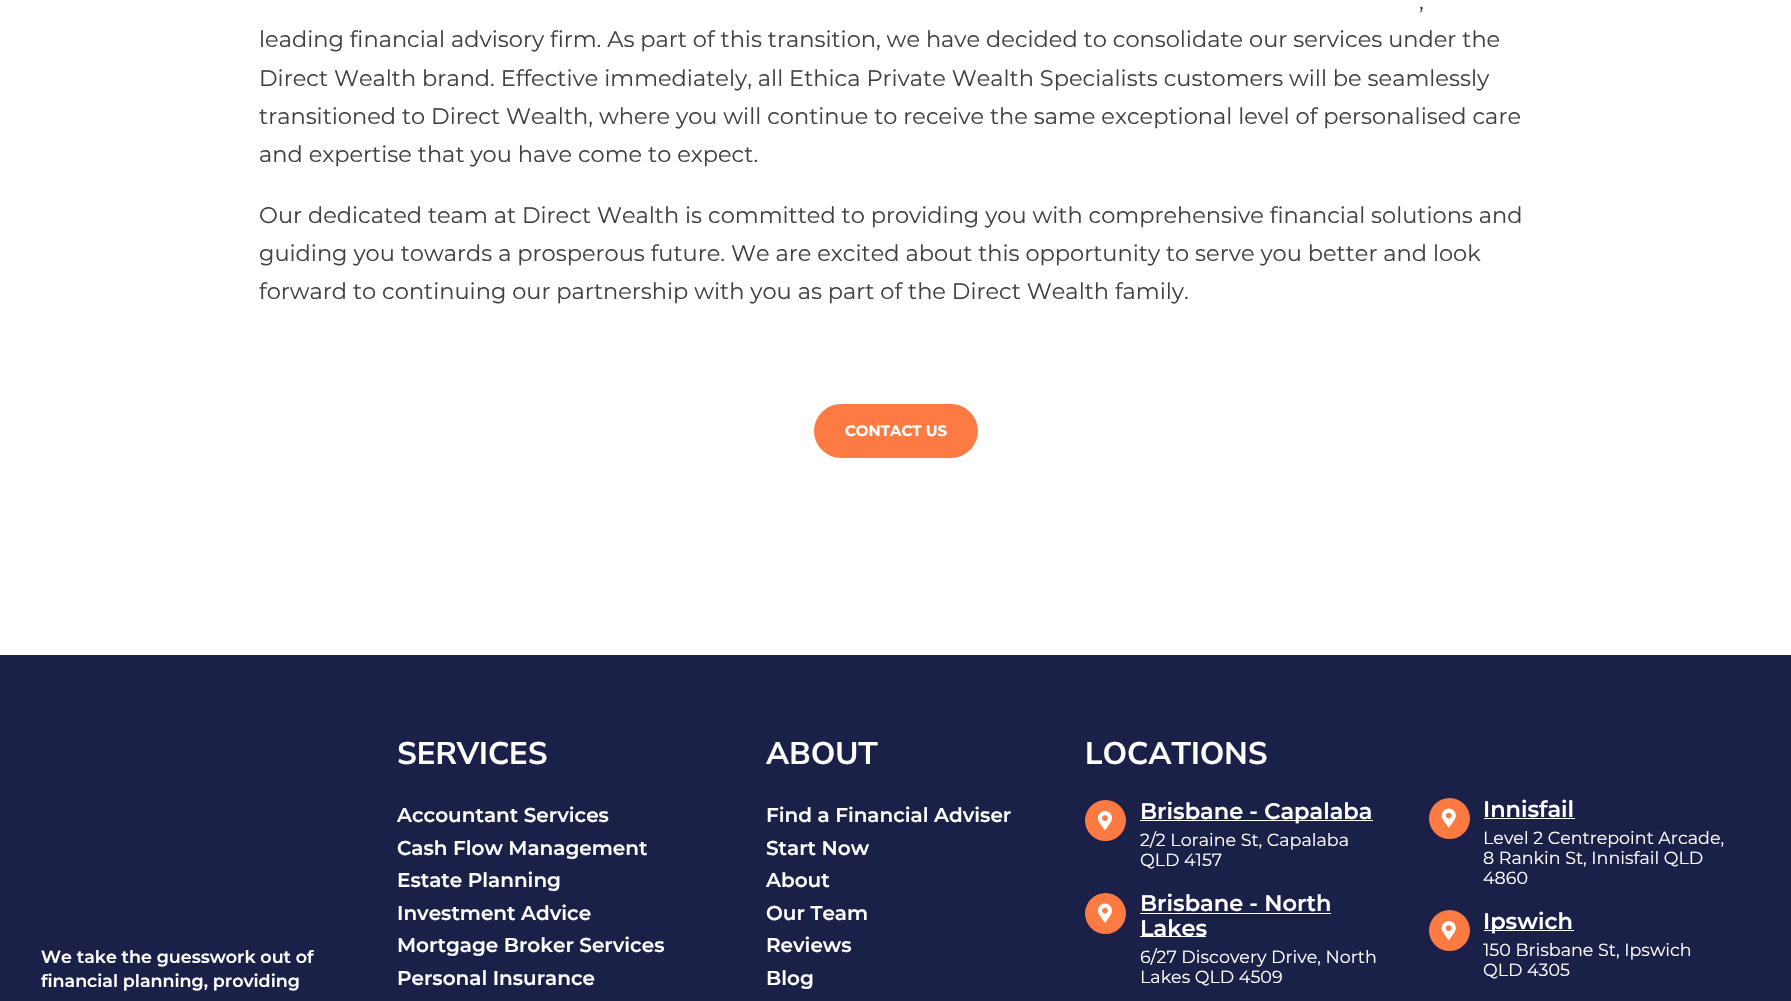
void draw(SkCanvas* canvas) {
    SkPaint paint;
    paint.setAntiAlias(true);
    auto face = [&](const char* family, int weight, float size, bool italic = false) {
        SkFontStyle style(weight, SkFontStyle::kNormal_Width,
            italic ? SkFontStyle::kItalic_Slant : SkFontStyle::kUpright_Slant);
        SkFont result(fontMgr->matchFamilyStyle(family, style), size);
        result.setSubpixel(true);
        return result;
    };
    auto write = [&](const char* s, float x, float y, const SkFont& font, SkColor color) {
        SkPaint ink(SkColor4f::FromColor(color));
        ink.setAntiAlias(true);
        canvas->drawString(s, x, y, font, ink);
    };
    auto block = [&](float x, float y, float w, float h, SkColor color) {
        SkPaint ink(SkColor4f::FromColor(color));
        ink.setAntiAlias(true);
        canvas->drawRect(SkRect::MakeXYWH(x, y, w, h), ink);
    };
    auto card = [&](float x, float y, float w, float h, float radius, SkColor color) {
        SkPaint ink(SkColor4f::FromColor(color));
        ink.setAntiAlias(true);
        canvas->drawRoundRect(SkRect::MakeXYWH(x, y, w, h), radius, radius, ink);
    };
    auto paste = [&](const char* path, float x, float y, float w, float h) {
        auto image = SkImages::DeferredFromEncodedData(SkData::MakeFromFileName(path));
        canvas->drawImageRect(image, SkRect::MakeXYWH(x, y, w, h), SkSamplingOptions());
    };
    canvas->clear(SK_ColorWHITE);
    auto kFont1 = face("Montserrat", 400, 22.5f);
    write(",", 1419, 9, kFont1, SkColorSetRGB(64, 64, 64));
    write("leading financial advisory firm. As part of this transition, we have decided to consolidate our services under the", 259, 47, kFont1, SkColorSetRGB(64, 64, 64));
    write("Direct Wealth brand. Effective immediately, all Ethica Private Wealth Specialists customers will be seamlessly", 259, 86, kFont1, SkColorSetRGB(64, 64, 64));
    write("transitioned to Direct Wealth, where you will continue to receive the same exceptional level of personalised care", 259, 124, kFont1, SkColorSetRGB(64, 64, 64));
    write("and expertise that you have come to expect.", 259, 162, kFont1, SkColorSetRGB(64, 64, 64));
    write("Our dedicated team at Direct Wealth is committed to providing you with comprehensive financial solutions and", 259, 223, kFont1, SkColorSetRGB(64, 64, 64));
    write("guiding you towards a prosperous future. We are excited about this opportunity to serve you better and look", 259, 261, kFont1, SkColorSetRGB(64, 64, 64));
    write("forward to continuing our partnership with you as part of the Direct Wealth family.", 259, 299, kFont1, SkColorSetRGB(64, 64, 64));
    card(814, 404, 164, 54, 27, SkColorSetRGB(253, 123, 67));
    auto kFont2 = face("Montserrat", 700, 15);
    write("CONTACT US", 845, 436, kFont2, SK_ColorWHITE);
    block(0, 655, 1791, 346, SkColorSetRGB(27, 32, 72));
    auto kFont3 = face("Montserrat", 600, 17.5f);
    write("We take the guesswork out of", 41, 963, kFont3, SK_ColorWHITE);
    write("financial planning, providing", 41, 987, kFont3, SK_ColorWHITE);
    auto kFont4 = face("Nunito Sans", 700, 31.25f);
    write("SERVICES", 397, 764, kFont4, SK_ColorWHITE);
    auto kFont5 = face("Montserrat", 600, 20);
    write("Accountant Services", 397, 822, kFont5, SK_ColorWHITE);
    write("Cash Flow Management", 397, 855, kFont5, SK_ColorWHITE);
    write("Estate Planning", 397, 887, kFont5, SK_ColorWHITE);
    write("Investment Advice", 397, 920, kFont5, SK_ColorWHITE);
    write("Mortgage Broker Services", 397, 952, kFont5, SK_ColorWHITE);
    write("Personal Insurance", 397, 985, kFont5, SK_ColorWHITE);
    write("ABOUT", 766, 764, kFont4, SK_ColorWHITE);
    write("Find a Financial Adviser", 766, 822, kFont5, SK_ColorWHITE);
    write("Start Now", 766, 855, kFont5, SK_ColorWHITE);
    write("About", 766, 887, kFont5, SK_ColorWHITE);
    write("Our Team", 766, 920, kFont5, SK_ColorWHITE);
    write("Reviews", 766, 952, kFont5, SK_ColorWHITE);
    write("Blog", 766, 985, kFont5, SK_ColorWHITE);
    write("LOCATIONS", 1085, 764, kFont4, SK_ColorWHITE);
    paint.setColor(SkColorSetRGB(253, 123, 67));
    canvas->drawCircle(1105.5f, 820.5f, 20.5f, paint);
    paste("pic1.png", 1098, 811, 14, 19);
    block(1140, 820, 233, 1, SK_ColorWHITE);
    auto kFont6 = face("Montserrat", 600, 22.5f);
    write("Brisbane - Capalaba", 1140, 819, kFont6, SK_ColorWHITE);
    auto kFont7 = face("Montserrat", 400, 17.5f);
    write("2/2 Loraine St, Capalaba", 1140, 846, kFont7, SK_ColorWHITE);
    write("QLD 4157", 1140, 866, kFont7, SK_ColorWHITE);
    canvas->drawCircle(1105.5f, 913.5f, 20.5f, paint);
    paste("pic2.png", 1098, 903, 14, 20);
    write("Brisbane - North", 1140, 911, kFont6, SK_ColorWHITE);
    block(1140, 913, 191, 1, SK_ColorWHITE);
    block(1140, 936, 66, 1, SK_ColorWHITE);
    write("Lakes", 1140, 936, kFont6, SK_ColorWHITE);
    write("6/27 Discovery Drive, North", 1140, 963, kFont7, SK_ColorWHITE);
    write("Lakes QLD 4509", 1140, 983, kFont7, SK_ColorWHITE);
    canvas->drawCircle(1449.5f, 818.5f, 20.5f, paint);
    paste("pic3.png", 1441, 808, 15, 20);
    write("Innisfail", 1483, 817, kFont6, SK_ColorWHITE);
    block(1484, 818, 91, 1, SK_ColorWHITE);
    write("Level 2 Centrepoint Arcade,", 1483, 844, kFont7, SK_ColorWHITE);
    write("8 Rankin St, Innisfail QLD", 1483, 864, kFont7, SK_ColorWHITE);
    write("4860", 1483, 884, kFont7, SK_ColorWHITE);
    canvas->drawCircle(1449.5f, 930.5f, 20.5f, paint);
    paste("pic4.png", 1441, 921, 15, 19);
    block(1484, 930, 90, 1, SK_ColorWHITE);
    write("Ipswich", 1483, 929, kFont6, SK_ColorWHITE);
    write("150 Brisbane St, Ipswich", 1483, 956, kFont7, SK_ColorWHITE);
    write("QLD 4305", 1483, 976, kFont7, SK_ColorWHITE);
}
